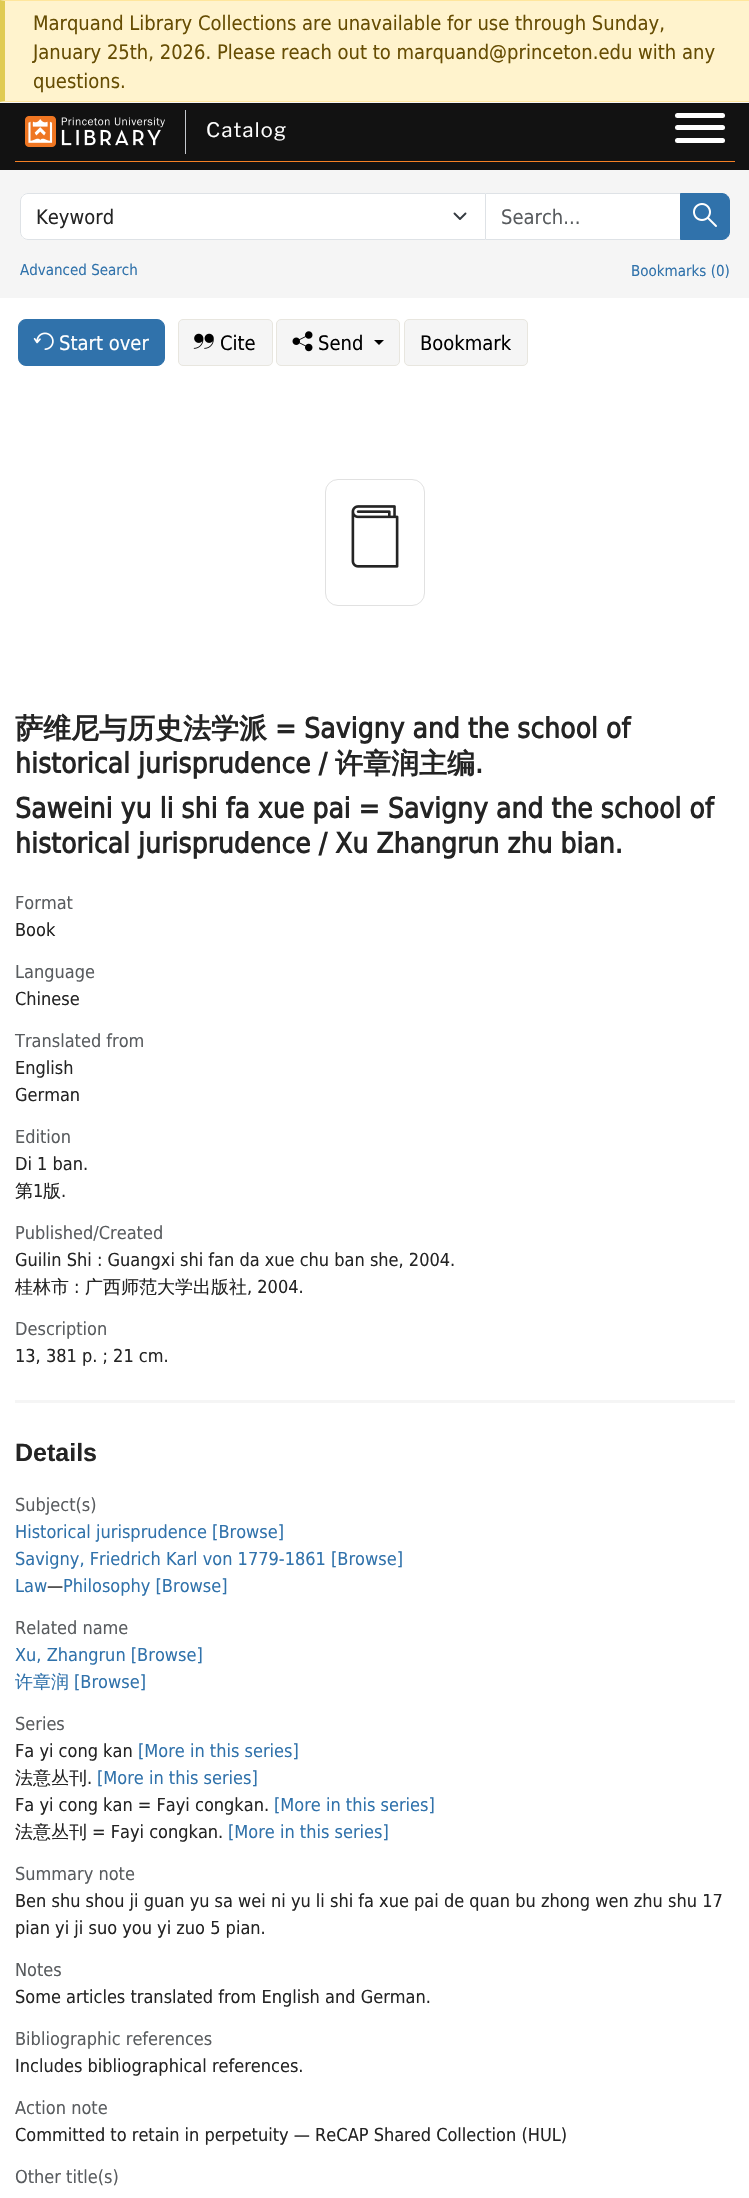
void draw(SkCanvas* canvas) {
    SkPaint paint;
    paint.setAntiAlias(true);
    auto face = [&](const char* family, int weight, float size, bool italic = false) {
        SkFontStyle style(weight, SkFontStyle::kNormal_Width,
            italic ? SkFontStyle::kItalic_Slant : SkFontStyle::kUpright_Slant);
        SkFont result(fontMgr->matchFamilyStyle(family, style), size);
        result.setSubpixel(true);
        return result;
    };
    auto write = [&](const char* s, float x, float y, const SkFont& font, SkColor color) {
        SkPaint ink(SkColor4f::FromColor(color));
        ink.setAntiAlias(true);
        canvas->drawString(s, x, y, font, ink);
    };
    auto writeSpaced = [&](const char* s, float x, float y, const SkFont& font, const SkPaint& ink, float letter, float word) {
        std::vector<SkGlyphID> glyphs(font.countText(s, strlen(s), SkTextEncoding::kUTF8));
        std::vector<float> xs(glyphs.size());
        font.textToGlyphs(s, strlen(s), SkTextEncoding::kUTF8, glyphs);
        font.getXPos(glyphs, xs, x);
        float extra = 0;
        for (size_t i = 0; i < glyphs.size(); i++) {
            xs[i] += extra;
            extra += letter + word * (glyphs[i] == font.unicharToGlyph(' '));
        }
        canvas->drawTextBlob(SkTextBlob::MakeFromPosHGlyphs(glyphs, xs, y, font), 0, 0, ink);
    };
    auto block = [&](float x, float y, float w, float h, SkColor color) {
        SkPaint ink(SkColor4f::FromColor(color));
        ink.setAntiAlias(true);
        canvas->drawRect(SkRect::MakeXYWH(x, y, w, h), ink);
    };
    auto card = [&](float x, float y, float w, float h, float radius, SkColor color) {
        SkPaint ink(SkColor4f::FromColor(color));
        ink.setAntiAlias(true);
        canvas->drawRoundRect(SkRect::MakeXYWH(x, y, w, h), radius, radius, ink);
    };
    auto paste = [&](const char* path, float x, float y, float w, float h) {
        auto image = SkImages::DeferredFromEncodedData(SkData::MakeFromFileName(path));
        canvas->drawImageRect(image, SkRect::MakeXYWH(x, y, w, h), SkSamplingOptions());
    };
    canvas->clear(SkColorSetRGB(245, 245, 245));
    block(5, 1, 744, 100, SkColorSetRGB(255, 243, 205));
    paint.setColor(SkColorSetRGB(255, 230, 156));
    canvas->drawPath(SkPathBuilder().moveTo(0, 0).lineTo(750, 0).lineTo(749, 1).lineTo(5, 1).close().detach(), paint);
    canvas->drawPath(SkPathBuilder().moveTo(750, 102).lineTo(0, 102).lineTo(5, 101).lineTo(749, 101).close().detach(), paint);
    paint.setColor(SkColorSetRGB(224, 203, 82));
    canvas->drawPath(SkPathBuilder().moveTo(0, 102).lineTo(0, 0).lineTo(5, 1).lineTo(5, 101).close().detach(), paint);
    auto kFont1 = face("DejaVu Sans", 400, 20);
    write("Marquand Library Collections are unavailable for use through Sunday,", 33, 30, kFont1, SkColorSetRGB(102, 77, 3));
    write("January 25th, 2026. Please reach out to marquand@princeton.edu with any", 33, 59, kFont1, SkColorSetRGB(102, 77, 3));
    write("questions.", 33, 88, kFont1, SkColorSetRGB(102, 77, 3));
    block(0, 103, 749, 67, SkColorSetRGB(18, 18, 18));
    block(15, 161, 720, 1, SkColorSetRGB(245, 128, 37));
    paste("pic1.png", 25, 116, 140, 31);
    block(185, 110, 1, 44, SkColorSetRGB(197, 200, 206));
    auto kFont2 = face("Libre Franklin", 400, 20);
    paint.setColor(SK_ColorWHITE);
    writeSpaced("Catalog", 206, 137, kFont2, paint, 1.25f, 0);
    card(675, 125, 50, 5, 2.5f, SK_ColorWHITE);
    card(675, 113, 50, 5, 2.5f, SK_ColorWHITE);
    card(675, 138, 50, 5, 2.5f, SK_ColorWHITE);
    canvas->drawRect(SkRect::MakeXYWH(485.5f, 193.5f, 195, 46), paint);
    paint.setStyle(SkPaint::kStroke_Style);
    paint.setStrokeWidth(1);
    paint.setColor(SkColorSetRGB(222, 226, 230));
    canvas->drawRect(SkRect::MakeXYWH(485.5f, 193.5f, 195, 46), paint);
    paint.setStyle(SkPaint::kFill_Style);
    paint.setColor(SK_ColorWHITE);
    canvas->drawPath(SkPathBuilder().moveTo(28, 193).lineTo(486, 193).lineTo(486, 240).lineTo(28, 240).cubicTo(23.5f, 240, 20, 236.5f, 20, 232).lineTo(20, 201).cubicTo(20, 196.5f, 23.5f, 193, 28, 193).close().detach(), paint);
    paint.setStyle(SkPaint::kStroke_Style);
    paint.setStrokeWidth(1.9f);
    paint.setStrokeCap(SkPaint::kRound_Cap);
    paint.setStrokeJoin(SkPaint::kRound_Join);
    paint.setColor(SkColorSetRGB(52, 58, 64));
    canvas->drawPath(SkPathBuilder().moveTo(454.5f, 213.5f).lineTo(460, 219).lineTo(465.5f, 213.5f).detach(), paint);
    paint.setStrokeWidth(1);
    paint.setStrokeCap(SkPaint::kButt_Cap);
    paint.setStrokeJoin(SkPaint::kMiter_Join);
    paint.setColor(SkColorSetRGB(222, 226, 230));
    canvas->drawPath(SkPathBuilder().moveTo(28, 193.5f).lineTo(485.5f, 193.5f).lineTo(485.5f, 239.5f).lineTo(28, 239.5f).cubicTo(24, 239.5f, 20.5f, 236, 20.5f, 232).lineTo(20.5f, 201).cubicTo(20.5f, 197, 24, 193.5f, 28, 193.5f).close().detach(), paint);
    write("Keyword", 36, 224, kFont1, SkColorSetRGB(36, 36, 36));
    write("Search...", 501, 224, kFont1, SkColorSetRGB(89, 92, 95));
    paint.setStyle(SkPaint::kFill_Style);
    paint.setColor(SkColorSetRGB(48, 114, 171));
    canvas->drawPath(SkPathBuilder().moveTo(680.5f, 193.5f).lineTo(722, 193.5f).cubicTo(726, 193.5f, 729.5f, 197, 729.5f, 201).lineTo(729.5f, 232).cubicTo(729.5f, 236, 726, 239.5f, 722, 239.5f).lineTo(680.5f, 239.5f).close().detach(), paint);
    paint.setStyle(SkPaint::kStroke_Style);
    canvas->drawPath(SkPathBuilder().moveTo(680.5f, 193.5f).lineTo(722, 193.5f).cubicTo(726, 193.5f, 729.5f, 197, 729.5f, 201).lineTo(729.5f, 232).cubicTo(729.5f, 236, 726, 239.5f, 722, 239.5f).lineTo(680.5f, 239.5f).close().detach(), paint);
    paste("pic2.png", 693, 203, 24, 24);
    auto kFont3 = face("DejaVu Sans", 400, 15);
    write("Advanced Search", 20, 275, kFont3, SkColorSetRGB(48, 114, 171));
    write("Bookmarks (0)", 631, 276, kFont3, SkColorSetRGB(48, 114, 171));
    block(0, 298, 749, 1900, SK_ColorWHITE);
    paint.setStyle(SkPaint::kFill_Style);
    canvas->drawRoundRect(SkRect::MakeXYWH(18.5f, 319.5f, 146, 46), 7.5f, 7.5f, paint);
    paint.setStyle(SkPaint::kStroke_Style);
    canvas->drawRoundRect(SkRect::MakeXYWH(18.5f, 319.5f, 146, 46), 7.5f, 7.5f, paint);
    paste("pic3.png", 33, 332, 21, 18);
    write("Start over", 59, 350, kFont1, SK_ColorWHITE);
    paint.setStyle(SkPaint::kFill_Style);
    paint.setColor(SkColorSetRGB(245, 245, 245));
    canvas->drawRoundRect(SkRect::MakeXYWH(178.5f, 319.5f, 94, 46), 4.5f, 4.5f, paint);
    paint.setStyle(SkPaint::kStroke_Style);
    paint.setColor(SkColorSetRGB(232, 230, 223));
    canvas->drawRoundRect(SkRect::MakeXYWH(178.5f, 319.5f, 94, 46), 4.5f, 4.5f, paint);
    paste("pic4.png", 193, 333, 21, 16);
    write("Cite", 220, 350, kFont1, SK_ColorBLACK);
    paint.setStyle(SkPaint::kFill_Style);
    paint.setColor(SkColorSetRGB(245, 245, 245));
    canvas->drawRoundRect(SkRect::MakeXYWH(276.5f, 319.5f, 123, 46), 4.5f, 4.5f, paint);
    paint.setStyle(SkPaint::kStroke_Style);
    paint.setColor(SkColorSetRGB(232, 230, 223));
    canvas->drawRoundRect(SkRect::MakeXYWH(276.5f, 319.5f, 123, 46), 4.5f, 4.5f, paint);
    paste("pic5.png", 292, 331, 21, 21);
    write("Send", 318, 350, kFont1, SK_ColorBLACK);
    paint.setStyle(SkPaint::kFill_Style);
    paint.setColor(SK_ColorBLACK);
    canvas->drawPath(SkPathBuilder().moveTo(374, 340).lineTo(384, 340).lineTo(379, 345).close().detach(), paint);
    paint.setColor(SkColorSetRGB(245, 245, 245));
    canvas->drawRoundRect(SkRect::MakeXYWH(404.5f, 319.5f, 123, 46), 4.5f, 4.5f, paint);
    paint.setStyle(SkPaint::kStroke_Style);
    paint.setColor(SkColorSetRGB(232, 230, 223));
    canvas->drawRoundRect(SkRect::MakeXYWH(404.5f, 319.5f, 123, 46), 4.5f, 4.5f, paint);
    write("Bookmark", 420, 350, kFont1, SK_ColorBLACK);
    paint.setColor(SkColorSetRGB(225, 225, 225));
    canvas->drawRoundRect(SkRect::MakeXYWH(325.5f, 479.5f, 99, 126), 12.5f, 12.5f, paint);
    paste("pic6.png", 351, 505, 48, 63);
    auto kFont4 = face("WenQuanYi Zen Hei", 700, 28);
    write("萨维尼与历史法学派", 15, 738, kFont4, SkColorSetRGB(36, 36, 36));
    auto kFont5 = face("DejaVu Sans", 700, 28);
    write("= Savigny and the school of", 275, 738, kFont5, SkColorSetRGB(36, 36, 36));
    write("historical jurisprudence /", 15, 773, kFont5, SkColorSetRGB(36, 36, 36));
    write("许章润主编", 335, 773, kFont4, SkColorSetRGB(36, 36, 36));
    write(".", 475, 773, kFont5, SkColorSetRGB(36, 36, 36));
    write("Saweini yu li shi fa xue pai = Savigny and the school of", 15, 818, kFont5, SkColorSetRGB(36, 36, 36));
    write("historical jurisprudence / Xu Zhangrun zhu bian.", 15, 853, kFont5, SkColorSetRGB(36, 36, 36));
    block(15, 1400, 720, 3, SkColorSetRGB(245, 245, 245));
    auto kFont6 = face("DejaVu Sans", 400, 18);
    write("Format", 15, 909, kFont6, SkColorSetRGB(89, 92, 95));
    write("Book", 15, 936, kFont6, SkColorSetRGB(36, 36, 36));
    write("Language", 15, 978, kFont6, SkColorSetRGB(89, 92, 95));
    write("Chinese", 15, 1005, kFont6, SkColorSetRGB(36, 36, 36));
    write("Translated from", 15, 1047, kFont6, SkColorSetRGB(89, 92, 95));
    write("English", 15, 1074, kFont6, SkColorSetRGB(36, 36, 36));
    write("German", 15, 1101, kFont6, SkColorSetRGB(36, 36, 36));
    write("Εdition", 15, 1143, kFont6, SkColorSetRGB(89, 92, 95));
    write("Di 1 ban.", 15, 1170, kFont6, SkColorSetRGB(36, 36, 36));
    auto kFont7 = face("WenQuanYi Zen Hei", 500, 18);
    write("第", 15, 1197, kFont7, SkColorSetRGB(36, 36, 36));
    write("1", 33, 1197, kFont6, SkColorSetRGB(36, 36, 36));
    write("版", 43, 1197, kFont7, SkColorSetRGB(36, 36, 36));
    write(".", 61, 1197, kFont6, SkColorSetRGB(36, 36, 36));
    write("Published/Created", 15, 1239, kFont6, SkColorSetRGB(89, 92, 95));
    write("Guilin Shi : Guangxi shi fan da xue chu ban she, 2004.", 15, 1266, kFont6, SkColorSetRGB(36, 36, 36));
    write("桂林市", 15, 1293, kFont7, SkColorSetRGB(36, 36, 36));
    write(":", 74, 1293, kFont6, SkColorSetRGB(36, 36, 36));
    write("广西师范大学出版社", 85, 1293, kFont7, SkColorSetRGB(36, 36, 36));
    write(", 2004.", 247, 1293, kFont6, SkColorSetRGB(36, 36, 36));
    write("Description", 15, 1335, kFont6, SkColorSetRGB(89, 92, 95));
    write("13, 381 p. ; 21 cm.", 15, 1362, kFont6, SkColorSetRGB(36, 36, 36));
    auto kFont8 = face("Liberation Sans", 700, 25);
    write("Details", 15, 1461, kFont8, SkColorSetRGB(36, 36, 36));
    write("Subject(s)", 15, 1511, kFont6, SkColorSetRGB(89, 92, 95));
    write("Historical jurisprudence [Browse]", 15, 1538, kFont6, SkColorSetRGB(48, 114, 171));
    write("Savigny, Friedrich Karl von 1779-1861 [Browse]", 15, 1565, kFont6, SkColorSetRGB(48, 114, 171));
    write("Law", 15, 1592, kFont6, SkColorSetRGB(48, 114, 171));
    write("—", 47, 1592, kFont6, SkColorSetRGB(36, 36, 36));
    write("Philosophy [Browse]", 63, 1592, kFont6, SkColorSetRGB(48, 114, 171));
    write("Related name", 15, 1634, kFont6, SkColorSetRGB(89, 92, 95));
    write("Xu, Zhangrun [Browse]", 15, 1661, kFont6, SkColorSetRGB(48, 114, 171));
    write("许章润", 15, 1688, kFont7, SkColorSetRGB(48, 114, 171));
    write("[Browse]", 74, 1688, kFont6, SkColorSetRGB(48, 114, 171));
    write("Series", 15, 1730, kFont6, SkColorSetRGB(89, 92, 95));
    write("Fa yi cong kan", 15, 1757, kFont6, SkColorSetRGB(36, 36, 36));
    write("[More in this series]", 138, 1757, kFont6, SkColorSetRGB(48, 114, 171));
    write("法意丛刊", 15, 1784, kFont7, SkColorSetRGB(36, 36, 36));
    write(".", 87, 1784, kFont6, SkColorSetRGB(36, 36, 36));
    write("[More in this series]", 97, 1784, kFont6, SkColorSetRGB(48, 114, 171));
    write("Fa yi cong kan = Fayi congkan.", 15, 1811, kFont6, SkColorSetRGB(36, 36, 36));
    write("[More in this series]", 274, 1811, kFont6, SkColorSetRGB(48, 114, 171));
    write("法意丛刊", 15, 1838, kFont7, SkColorSetRGB(36, 36, 36));
    write("= Fayi congkan.", 92, 1838, kFont6, SkColorSetRGB(36, 36, 36));
    write("[More in this series]", 228, 1838, kFont6, SkColorSetRGB(48, 114, 171));
    write("Summary note", 15, 1880, kFont6, SkColorSetRGB(89, 92, 95));
    write("Ben shu shou ji guan yu sa wei ni yu li shi fa xue pai de quan bu zhong wen zhu shu 17", 15, 1907, kFont6, SkColorSetRGB(36, 36, 36));
    write("pian yi ji suo you yi zuo 5 pian.", 15, 1934, kFont6, SkColorSetRGB(36, 36, 36));
    write("Notes", 15, 1976, kFont6, SkColorSetRGB(89, 92, 95));
    write("Some articles translated from English and German.", 15, 2003, kFont6, SkColorSetRGB(36, 36, 36));
    write("Bibliographic references", 15, 2045, kFont6, SkColorSetRGB(89, 92, 95));
    write("Includes bibliographical references.", 15, 2072, kFont6, SkColorSetRGB(36, 36, 36));
    write("Action note", 15, 2114, kFont6, SkColorSetRGB(89, 92, 95));
    write("Committed to retain in perpetuity — ReCAP Shared Collection (HUL)", 15, 2141, kFont6, SkColorSetRGB(36, 36, 36));
    write("Other title(s)", 15, 2183, kFont6, SkColorSetRGB(89, 92, 95));
}
